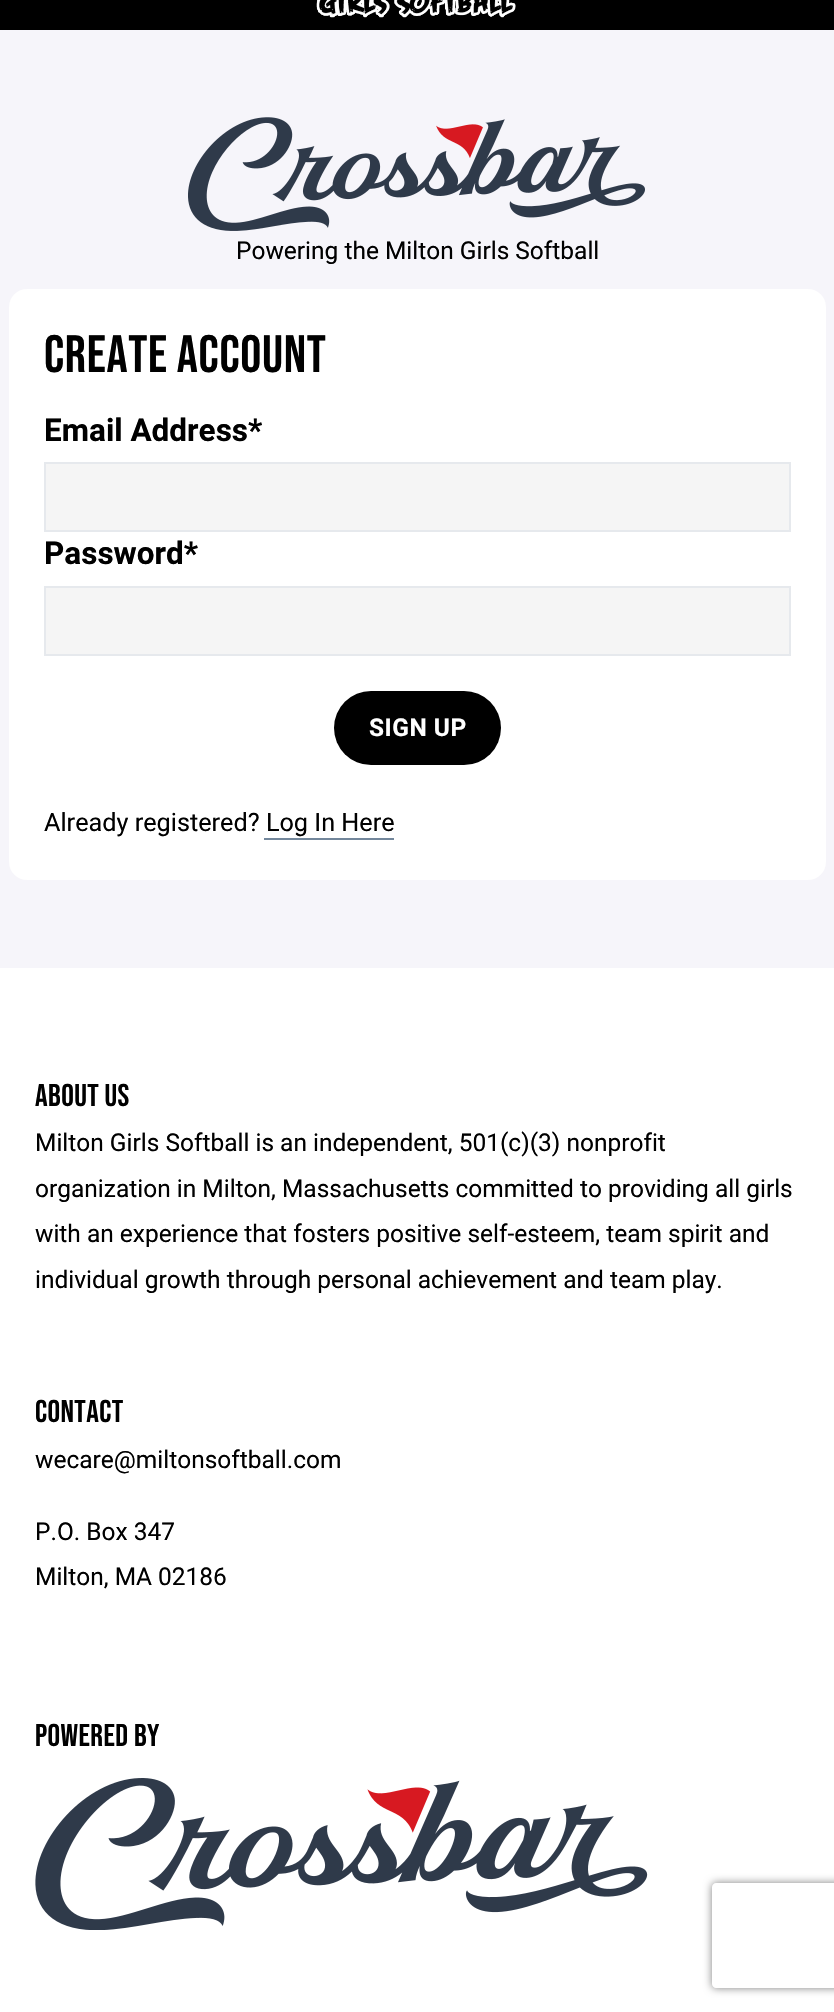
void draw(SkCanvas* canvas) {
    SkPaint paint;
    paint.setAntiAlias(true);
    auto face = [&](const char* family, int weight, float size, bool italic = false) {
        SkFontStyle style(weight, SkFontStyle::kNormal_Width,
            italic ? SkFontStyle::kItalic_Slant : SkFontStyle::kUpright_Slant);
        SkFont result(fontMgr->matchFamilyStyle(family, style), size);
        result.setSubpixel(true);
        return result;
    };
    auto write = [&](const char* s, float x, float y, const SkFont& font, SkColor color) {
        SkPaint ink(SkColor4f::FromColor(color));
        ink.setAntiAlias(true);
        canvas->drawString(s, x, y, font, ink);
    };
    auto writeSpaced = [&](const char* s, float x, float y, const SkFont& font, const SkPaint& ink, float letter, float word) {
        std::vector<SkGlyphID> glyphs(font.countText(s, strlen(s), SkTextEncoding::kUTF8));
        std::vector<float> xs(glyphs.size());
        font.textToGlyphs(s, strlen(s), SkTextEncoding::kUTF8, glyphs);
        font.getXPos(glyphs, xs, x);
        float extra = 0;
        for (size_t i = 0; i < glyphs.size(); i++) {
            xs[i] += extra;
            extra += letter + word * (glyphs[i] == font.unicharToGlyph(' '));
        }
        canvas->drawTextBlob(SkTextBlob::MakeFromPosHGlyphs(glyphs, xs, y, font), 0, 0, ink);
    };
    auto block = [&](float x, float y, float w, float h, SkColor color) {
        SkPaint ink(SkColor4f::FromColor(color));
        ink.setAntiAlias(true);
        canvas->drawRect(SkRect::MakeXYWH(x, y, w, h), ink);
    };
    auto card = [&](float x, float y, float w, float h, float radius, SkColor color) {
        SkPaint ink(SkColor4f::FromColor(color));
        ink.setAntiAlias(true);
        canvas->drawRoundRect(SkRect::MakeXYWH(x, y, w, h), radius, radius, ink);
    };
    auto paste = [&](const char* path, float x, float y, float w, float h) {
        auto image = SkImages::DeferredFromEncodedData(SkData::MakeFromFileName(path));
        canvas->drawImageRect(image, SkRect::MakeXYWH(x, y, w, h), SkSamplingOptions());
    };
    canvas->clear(SkColorSetRGB(246, 245, 250));
    block(0, 0, 834, 30, SK_ColorBLACK);
    paste("pic1.png", 316, 0, 200, 18);
    paste("pic2.png", 188, 117, 457, 114);
    auto kFont1 = face("Roboto", 400, 24.5f);
    write("Powering the Milton Girls Softball", 236, 259, kFont1, SK_ColorBLACK);
    card(9, 289, 817, 591, 18, SK_ColorWHITE);
    auto kFont2 = face("Bebas Neue", 400, 52.5f);
    paint.setColor(SK_ColorBLACK);
    writeSpaced("CREATE ACCOUNT", 44, 372, kFont2, paint, 0.7f, 0);
    auto kFont3 = face("Roboto", 700, 31.5f);
    write("Email Address*", 44, 441, kFont3, SK_ColorBLACK);
    paint.setColor(SkColorSetRGB(245, 245, 245));
    canvas->drawRect(SkRect::MakeXYWH(45, 463, 745, 68), paint);
    paint.setStyle(SkPaint::kStroke_Style);
    paint.setStrokeWidth(2);
    paint.setColor(SkColorSetRGB(230, 233, 237));
    canvas->drawRect(SkRect::MakeXYWH(45, 463, 745, 68), paint);
    write("Password*", 44, 564, kFont3, SK_ColorBLACK);
    paint.setStyle(SkPaint::kFill_Style);
    paint.setColor(SkColorSetRGB(245, 245, 245));
    canvas->drawRect(SkRect::MakeXYWH(45, 587, 745, 68), paint);
    paint.setStyle(SkPaint::kStroke_Style);
    paint.setColor(SkColorSetRGB(230, 233, 237));
    canvas->drawRect(SkRect::MakeXYWH(45, 587, 745, 68), paint);
    card(334, 691, 167, 74, 37, SK_ColorBLACK);
    auto kFont4 = face("Roboto", 700, 24.5f);
    paint.setStyle(SkPaint::kFill_Style);
    paint.setColor(SK_ColorWHITE);
    writeSpaced("SIGN UP", 369, 736, kFont4, paint, 0.5f, 0);
    auto kFont5 = face("Roboto", 400, 25.25f);
    write("Already registered? Log In Here", 44, 831, kFont5, SK_ColorBLACK);
    block(264, 838, 130, 2, SkColorSetRGB(115, 135, 156));
    block(0, 968, 834, 1044, SK_ColorWHITE);
    auto kFont6 = face("Bebas Neue", 400, 31.5f);
    paint.setColor(SK_ColorBLACK);
    writeSpaced("ABOUT US", 35, 1106, kFont6, paint, 0.4f, 0);
    write("Milton Girls Softball is an independent, 501(c)(3) nonprofit", 35, 1151, kFont1, SK_ColorBLACK);
    write("organization in Milton, Massachusetts committed to providing all girls", 35, 1197, kFont1, SK_ColorBLACK);
    write("with an experience that fosters positive self-esteem, team spirit and", 35, 1242, kFont1, SK_ColorBLACK);
    write("individual growth through personal achievement and team play.", 35, 1288, kFont1, SK_ColorBLACK);
    writeSpaced("CONTACT", 35, 1422, kFont6, paint, 0.4f, 0);
    write("wecare@miltonsoftball.com", 35, 1468, kFont1, SK_ColorBLACK);
    write("P.O. Box 347", 35, 1540, kFont1, SK_ColorBLACK);
    write("Milton, MA 02186", 35, 1585, kFont1, SK_ColorBLACK);
    writeSpaced("POWERED BY", 35, 1746, kFont6, paint, 0.4f, 0);
    paste("pic3.png", 35, 1778, 613, 152);
    canvas->save();
    canvas->clipPath(SkPathBuilder(SkPathFillType::kEvenOdd).moveTo(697, 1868).lineTo(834, 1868).lineTo(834, 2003).lineTo(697, 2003).close().moveTo(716, 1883).lineTo(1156, 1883).cubicTo(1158, 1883, 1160, 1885, 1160, 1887).lineTo(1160, 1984).cubicTo(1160, 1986, 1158, 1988, 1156, 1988).lineTo(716, 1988).cubicTo(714, 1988, 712, 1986, 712, 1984).lineTo(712, 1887).cubicTo(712, 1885, 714, 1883, 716, 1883).close().detach(), true);
    paint.setColor(SkColorSetRGB(128, 128, 128));
    paint.setMaskFilter(SkMaskFilter::MakeBlur(kNormal_SkBlurStyle, 4.5f));
    canvas->drawRoundRect(SkRect::MakeXYWH(712, 1883, 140, 105), 4, 4, paint);
    paint.setMaskFilter(nullptr);
    canvas->restore();
}
